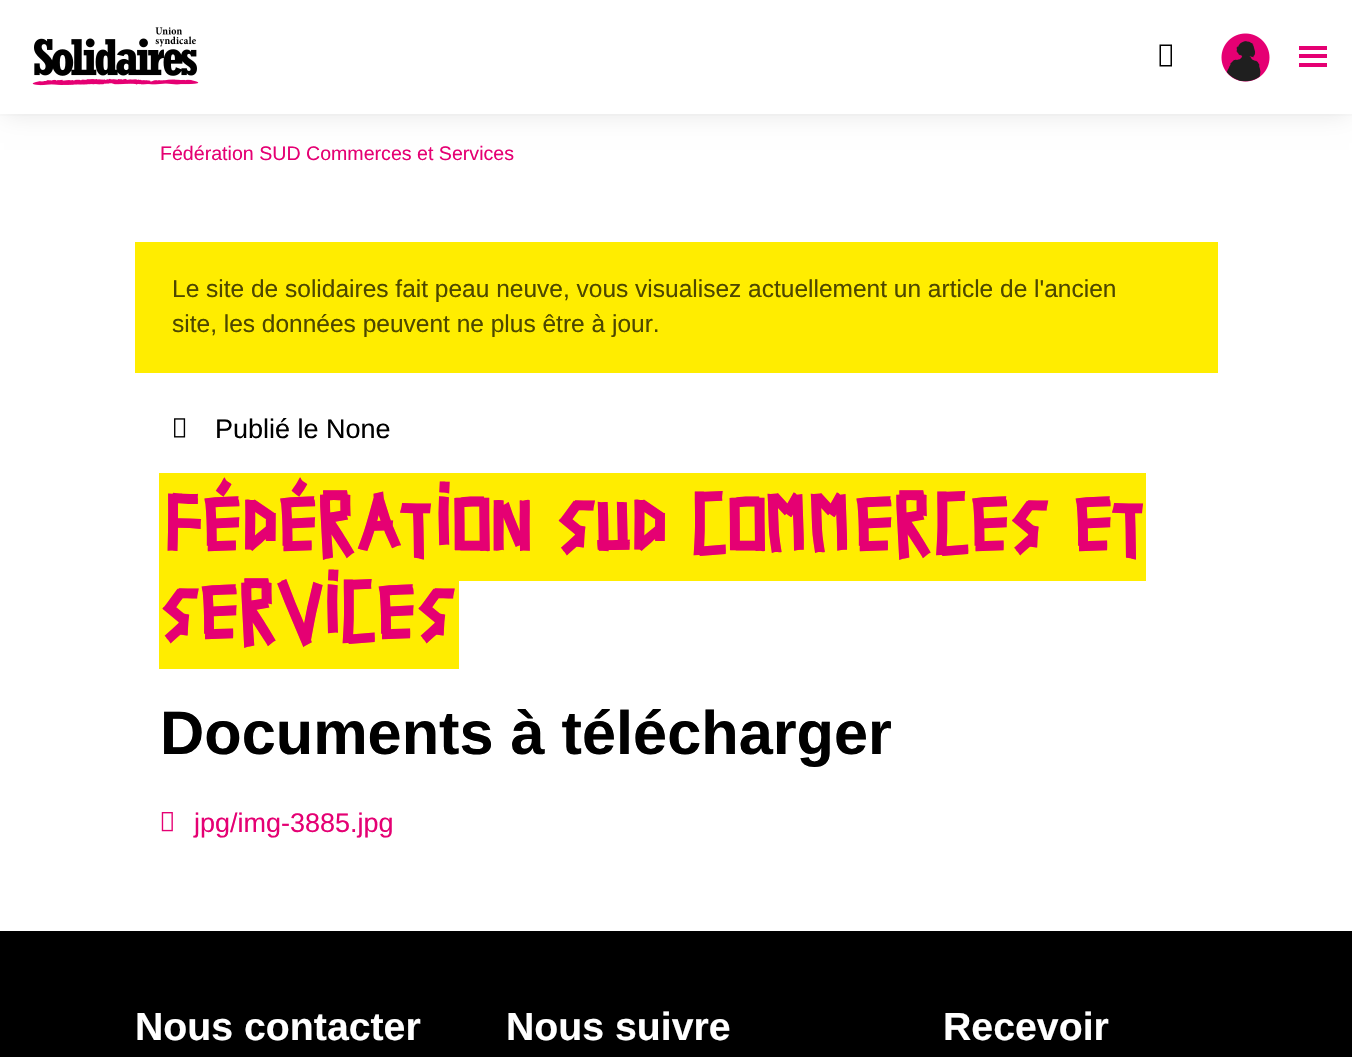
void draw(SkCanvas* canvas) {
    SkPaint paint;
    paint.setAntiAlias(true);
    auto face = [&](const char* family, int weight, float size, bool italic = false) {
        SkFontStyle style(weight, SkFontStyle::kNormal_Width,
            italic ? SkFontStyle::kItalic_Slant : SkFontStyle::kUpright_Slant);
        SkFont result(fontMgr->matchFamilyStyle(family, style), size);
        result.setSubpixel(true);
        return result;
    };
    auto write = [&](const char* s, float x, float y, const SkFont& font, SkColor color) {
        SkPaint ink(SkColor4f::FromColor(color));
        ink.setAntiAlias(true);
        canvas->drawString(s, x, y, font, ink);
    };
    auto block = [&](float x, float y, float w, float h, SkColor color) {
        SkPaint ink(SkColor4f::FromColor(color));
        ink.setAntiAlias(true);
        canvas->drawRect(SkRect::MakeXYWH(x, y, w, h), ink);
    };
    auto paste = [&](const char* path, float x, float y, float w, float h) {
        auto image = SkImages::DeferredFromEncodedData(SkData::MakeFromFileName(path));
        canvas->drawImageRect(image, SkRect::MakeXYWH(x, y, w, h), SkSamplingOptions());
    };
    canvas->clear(SK_ColorWHITE);
    paint.setStyle(SkPaint::kStroke_Style);
    paint.setStrokeWidth(2);
    paint.setColor(SkColorSetRGB(252, 252, 252));
    canvas->drawRect(SkRect::MakeXYWH(-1, -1, 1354, 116), paint);
    paint.setStyle(SkPaint::kFill_Style);
    paint.setColor(SkColorSetARGB(26, 0, 0, 0));
    paint.setMaskFilter(SkMaskFilter::MakeBlur(kNormal_SkBlurStyle, 12));
    canvas->drawRect(SkRect::MakeXYWH(4, 5, 1345, 109), paint);
    paint.setMaskFilter(nullptr);
    block(0, 0, 1352, 114, SK_ColorWHITE);
    paste("pic1.png", 32, 27, 167, 59);
    paint.setColor(SK_ColorBLACK);
    canvas->drawPath(SkPathBuilder().moveTo(1159.5f, 66.5f).lineTo(1159.5f, 44.5f).lineTo(1172, 44.5f).lineTo(1172, 66.5f).close().moveTo(1161, 65).lineTo(1170.5f, 65).lineTo(1170.5f, 46).lineTo(1161, 46).close().detach(), paint);
    paste("pic2.png", 1221, 33, 49, 49);
    block(1299, 46, 28, 4, SkColorSetRGB(229, 0, 115));
    block(1299, 54, 28, 4, SkColorSetRGB(229, 0, 115));
    block(1299, 63, 28, 4, SkColorSetRGB(229, 0, 115));
    auto kFont1 = face("Liberation Sans", 400, 19.6f);
    write("Fédération SUD Commerces et Services", 160, 160, kFont1, SkColorSetRGB(229, 0, 115));
    block(135, 242, 1083, 131, SkColorSetRGB(255, 237, 0));
    auto kFont2 = face("Liberation Sans", 400, 24.5f);
    write("Le site de solidaires fait peau neuve, vous visualisez actuellement un article de l'ancien", 172, 297, kFont2, SkColorSetRGB(77, 71, 0));
    write("site, les données peuvent ne plus être à jour.", 172, 332, kFont2, SkColorSetRGB(77, 71, 0));
    paste("pic3.png", 174, 418, 12, 20);
    auto kFont3 = face("Liberation Sans", 400, 27);
    write("Publié le None", 215, 438, kFont3, SK_ColorBLACK);
    block(159, 473, 987, 108, SkColorSetRGB(255, 237, 0));
    auto kFont4 = face("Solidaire", 400, 73.5f);
    write("FÉDÉRATION SUD COMMERCES ET", 165, 551, kFont4, SkColorSetRGB(229, 0, 115));
    block(159, 581, 300, 88, SkColorSetRGB(255, 237, 0));
    write("SERVICES", 160, 639, kFont4, SkColorSetRGB(229, 0, 115));
    auto kFont5 = face("Liberation Sans", 700, 61.25f);
    write("Documents à télécharger", 160, 754, kFont5, SK_ColorBLACK);
    paste("pic4.png", 161, 812, 12, 20);
    write("jpg/img-3885.jpg", 194, 832, kFont3, SkColorSetRGB(229, 0, 115));
    block(0, 931, 1352, 126, SK_ColorBLACK);
    auto kFont6 = face("Liberation Sans", 700, 39.25f);
    write("Nous contacter", 135, 1040, kFont6, SK_ColorWHITE);
    write("Nous suivre", 506, 1040, kFont6, SK_ColorWHITE);
    write("Recevoir", 943, 1040, kFont6, SK_ColorWHITE);
}
